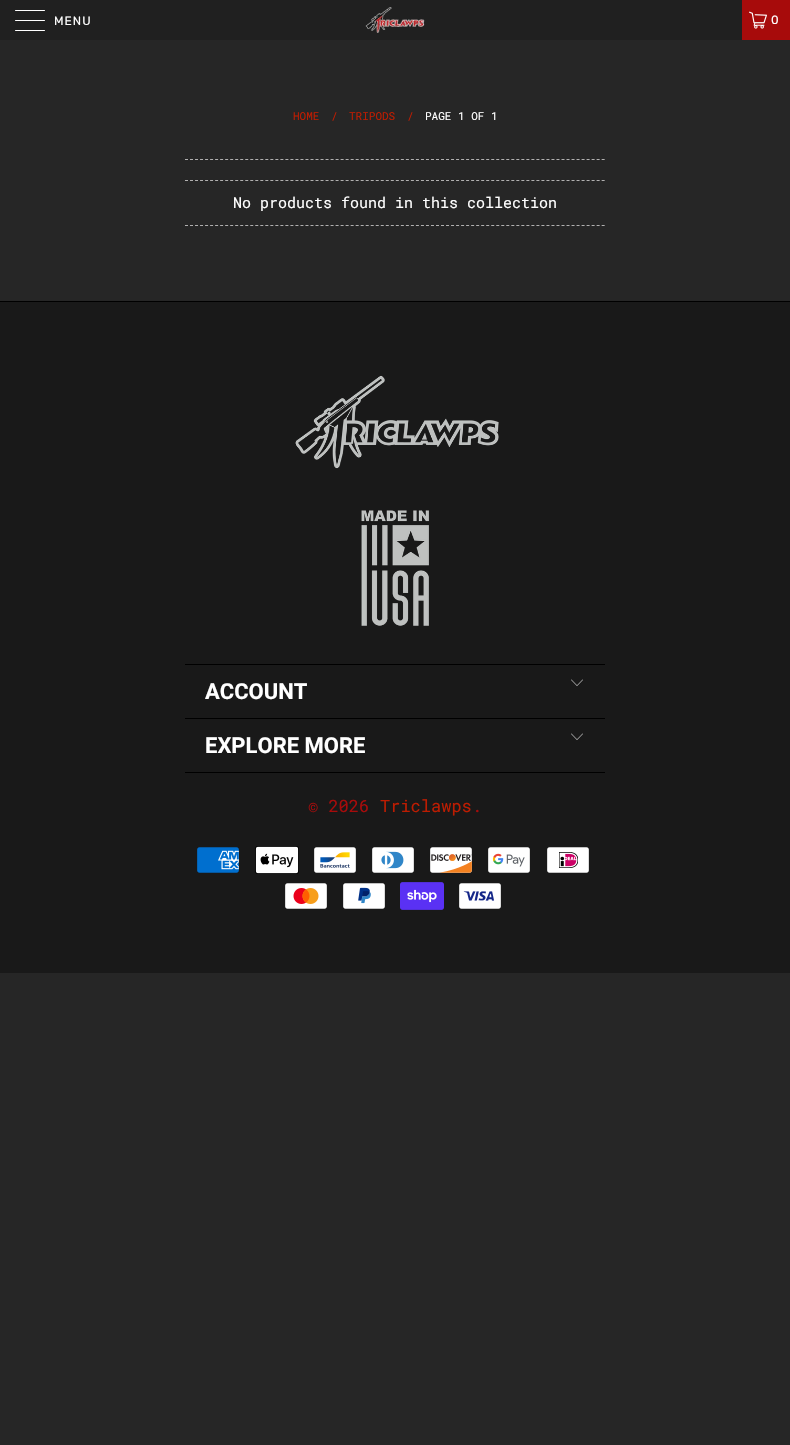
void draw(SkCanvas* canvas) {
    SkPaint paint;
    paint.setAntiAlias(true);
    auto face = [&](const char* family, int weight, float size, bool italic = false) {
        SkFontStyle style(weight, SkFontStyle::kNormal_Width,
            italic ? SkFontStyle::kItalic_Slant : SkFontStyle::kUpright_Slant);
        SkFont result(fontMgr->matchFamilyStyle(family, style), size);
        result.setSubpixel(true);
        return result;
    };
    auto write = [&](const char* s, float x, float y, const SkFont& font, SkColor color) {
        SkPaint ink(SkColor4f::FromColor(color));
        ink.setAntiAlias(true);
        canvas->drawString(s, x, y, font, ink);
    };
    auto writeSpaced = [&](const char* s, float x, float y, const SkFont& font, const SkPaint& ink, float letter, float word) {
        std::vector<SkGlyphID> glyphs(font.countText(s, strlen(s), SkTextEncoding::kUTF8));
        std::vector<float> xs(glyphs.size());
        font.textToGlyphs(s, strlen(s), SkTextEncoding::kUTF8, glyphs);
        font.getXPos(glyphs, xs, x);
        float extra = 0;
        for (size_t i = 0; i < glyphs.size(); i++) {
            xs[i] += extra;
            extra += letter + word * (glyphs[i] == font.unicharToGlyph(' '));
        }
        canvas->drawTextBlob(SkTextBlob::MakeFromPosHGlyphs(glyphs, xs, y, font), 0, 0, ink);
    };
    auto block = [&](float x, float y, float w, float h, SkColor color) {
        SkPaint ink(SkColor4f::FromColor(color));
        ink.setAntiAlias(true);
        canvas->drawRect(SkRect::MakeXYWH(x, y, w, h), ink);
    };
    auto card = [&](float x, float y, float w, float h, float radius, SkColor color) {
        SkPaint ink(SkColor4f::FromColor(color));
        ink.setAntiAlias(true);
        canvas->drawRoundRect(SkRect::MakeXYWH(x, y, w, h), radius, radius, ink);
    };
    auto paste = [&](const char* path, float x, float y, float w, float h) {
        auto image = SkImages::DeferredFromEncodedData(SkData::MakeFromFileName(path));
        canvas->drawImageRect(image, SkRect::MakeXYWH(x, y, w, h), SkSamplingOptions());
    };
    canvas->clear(SkColorSetRGB(38, 38, 38));
    block(0, 0, 742, 40, SkColorSetRGB(32, 32, 32));
    card(15, 10, 30, 1, 0.5f, SK_ColorWHITE);
    card(15, 20, 30, 1, 0.5f, SK_ColorWHITE);
    card(15, 30, 30, 1, 0.5f, SK_ColorWHITE);
    auto kFont1 = face("Rubik", 400, 12);
    paint.setColor(SK_ColorWHITE);
    writeSpaced("MENU", 54, 25, kFont1, paint, 1, 0);
    paste("pic1.png", 365, 7, 60, 26);
    block(742, 0, 48, 40, SkColorSetRGB(167, 11, 11));
    paste("pic2.png", 749, 11, 18, 18);
    writeSpaced("0", 771, 24, kFont1, paint, 1, 0);
    auto kFont2 = face("Roboto Mono", 400, 11);
    write("HOME", 293, 120, kFont2, SkColorSetRGB(189, 28, 1));
    write("/", 331, 120, kFont2, SkColorSetRGB(189, 28, 1));
    write("TRIPODS", 349, 120, kFont2, SkColorSetRGB(189, 28, 1));
    write("/", 407, 120, kFont2, SkColorSetRGB(189, 28, 1));
    write("PAGE 1 OF 1", 425, 120, kFont2, SK_ColorWHITE);
    paint.setStyle(SkPaint::kStroke_Style);
    paint.setStrokeWidth(1);
    paint.setColor(SkColorSetRGB(177, 176, 176));
    paint.setPathEffect(SkDashPathEffect::Make({{3, 2.02f}}, 0));
    canvas->drawPath(SkPathBuilder().moveTo(185, 159.5f).lineTo(605, 159.5f).detach(), paint);
    paint.setPathEffect(nullptr);
    paint.setPathEffect(SkDashPathEffect::Make({{3, 2.02f}}, 0));
    canvas->drawPath(SkPathBuilder().moveTo(185, 180.5f).lineTo(605, 180.5f).detach(), paint);
    paint.setPathEffect(nullptr);
    paint.setPathEffect(SkDashPathEffect::Make({{3, 2.02f}}, 0));
    canvas->drawPath(SkPathBuilder().moveTo(185, 225.5f).lineTo(605, 225.5f).detach(), paint);
    paint.setPathEffect(nullptr);
    auto kFont3 = face("Roboto Mono", 400, 15);
    write("No products found in this collection", 233, 208, kFont3, SK_ColorWHITE);
    block(0, 302, 790, 671, SkColorSetRGB(25, 25, 25));
    block(0, 301, 790, 1, SK_ColorBLACK);
    paste("pic3.png", 295, 375, 204, 94);
    paste("pic4.png", 361, 510, 68, 116);
    block(185, 664, 420, 1, SK_ColorBLACK);
    auto kFont4 = face("Roboto", 700, 22);
    write("ACCOUNT", 205, 699, kFont4, SK_ColorWHITE);
    paste("pic5.png", 571, 679, 12, 7);
    block(185, 718, 420, 1, SK_ColorBLACK);
    write("EXPLORE MORE", 205, 753, kFont4, SK_ColorWHITE);
    paste("pic5.png", 571, 733, 12, 7);
    block(185, 772, 420, 1, SK_ColorBLACK);
    auto kFont5 = face("Roboto Mono", 400, 17);
    write("© 2026", 308, 812, kFont5, SkColorSetRGB(167, 11, 11));
    write("Triclawps", 380, 812, kFont5, SkColorSetRGB(189, 28, 1));
    write(".", 472, 812, kFont5, SkColorSetRGB(167, 11, 11));
    paste("pic6.png", 197, 847, 42, 26);
    paste("pic7.png", 255, 846, 44, 28);
    paste("pic8.png", 314, 847, 42, 26);
    paste("pic9.png", 372, 847, 42, 26);
    paste("pic10.png", 430, 847, 42, 26);
    paste("pic11.png", 488, 847, 42, 26);
    paste("pic12.png", 547, 847, 42, 26);
    paste("pic13.png", 285, 883, 42, 26);
    paste("pic14.png", 343, 883, 42, 26);
    paste("pic15.png", 400, 882, 44, 28);
    paste("pic16.png", 459, 883, 42, 26);
}
